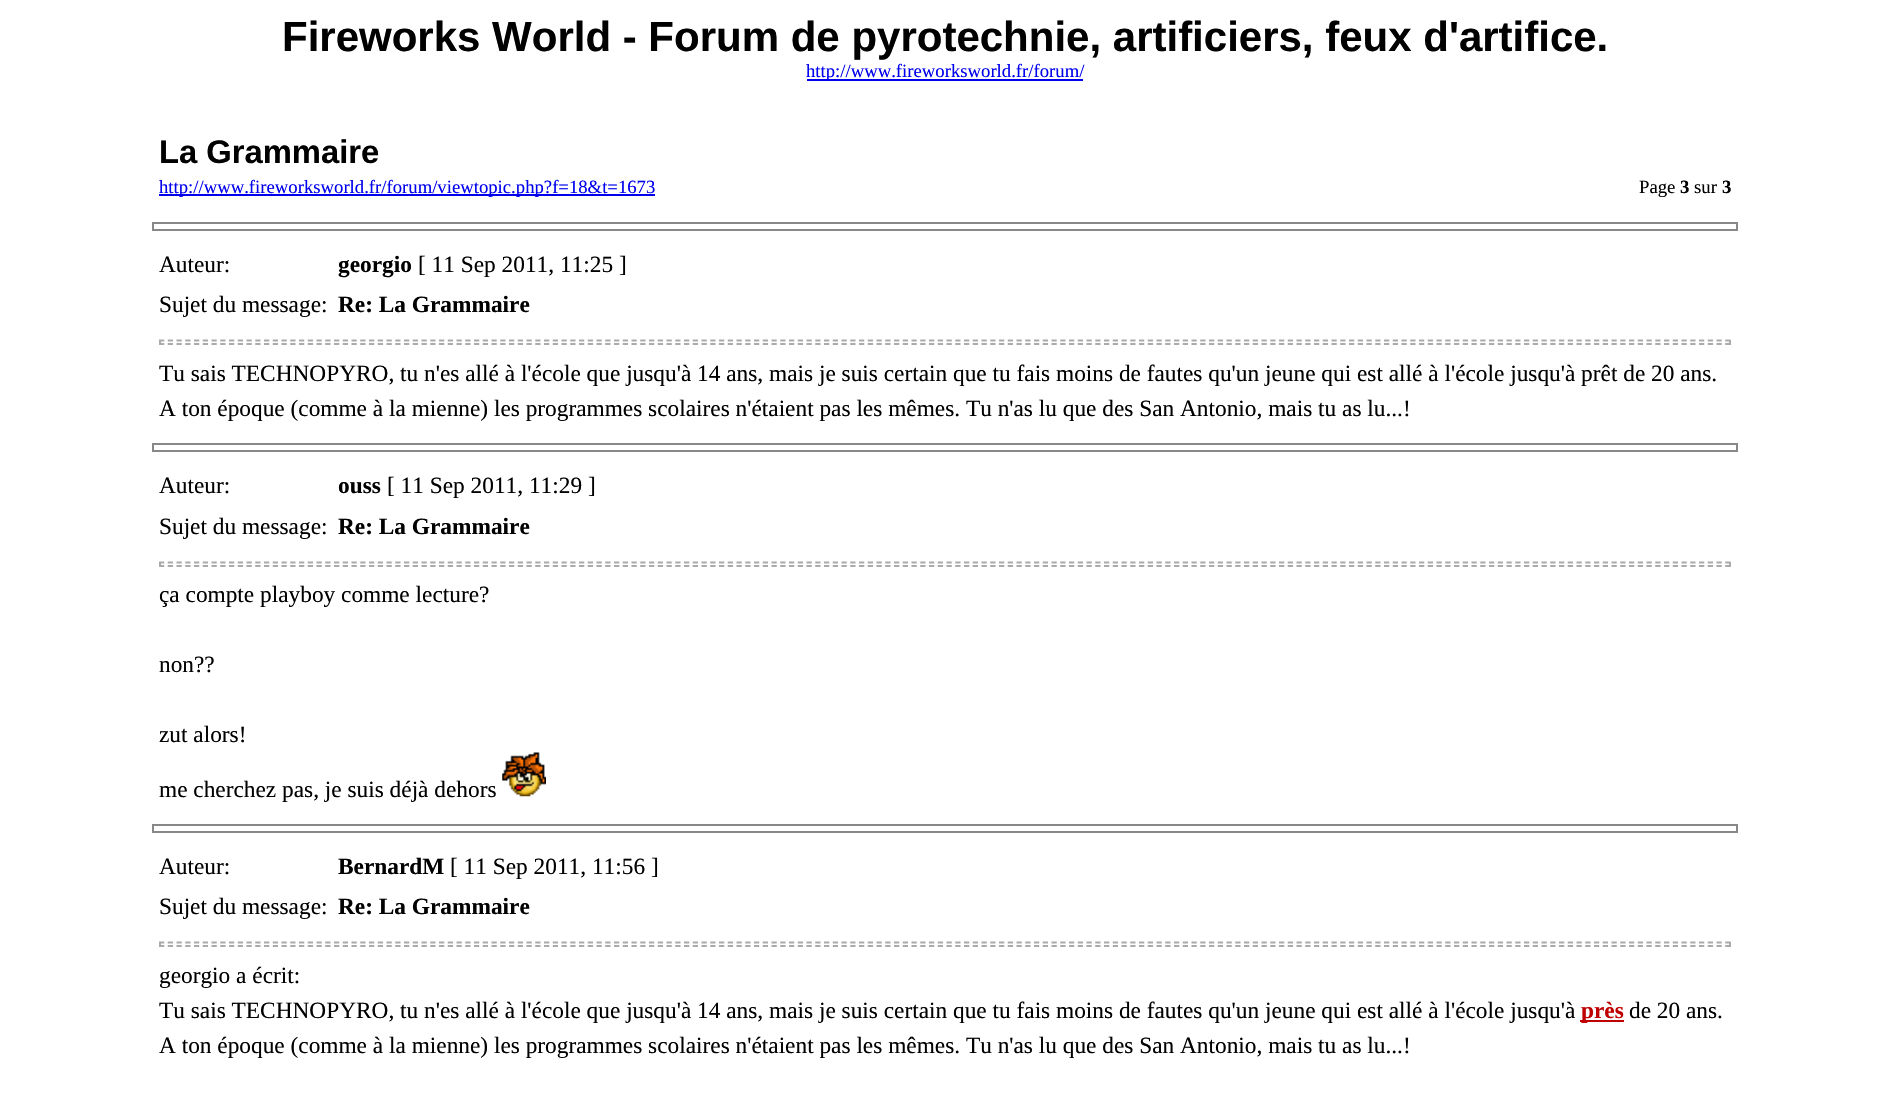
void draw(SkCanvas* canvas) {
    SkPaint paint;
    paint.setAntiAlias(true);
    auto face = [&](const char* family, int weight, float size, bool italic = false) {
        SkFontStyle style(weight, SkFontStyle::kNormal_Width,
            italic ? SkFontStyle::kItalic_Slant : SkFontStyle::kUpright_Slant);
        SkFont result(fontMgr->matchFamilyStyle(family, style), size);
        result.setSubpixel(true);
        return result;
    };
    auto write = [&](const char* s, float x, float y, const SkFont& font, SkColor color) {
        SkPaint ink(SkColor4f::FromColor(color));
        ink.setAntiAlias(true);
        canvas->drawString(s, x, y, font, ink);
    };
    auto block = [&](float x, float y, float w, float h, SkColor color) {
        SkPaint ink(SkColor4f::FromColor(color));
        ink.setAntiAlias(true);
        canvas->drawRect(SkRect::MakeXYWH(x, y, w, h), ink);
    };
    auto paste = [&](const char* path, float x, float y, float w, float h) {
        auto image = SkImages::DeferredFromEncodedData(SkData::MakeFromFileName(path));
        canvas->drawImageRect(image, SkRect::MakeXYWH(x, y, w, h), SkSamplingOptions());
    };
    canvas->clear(SK_ColorWHITE);
    auto kFont1 = face("Liberation Sans", 700, 42);
    write("Fireworks World - Forum de pyrotechnie, artificiers, feux d'artifice.", 282, 51, kFont1, SK_ColorBLACK);
    block(807, 79, 276, 2, SkColorSetRGB(0, 0, 238));
    auto kFont2 = face("Liberation Serif", 400, 18.7f);
    write("http://www.fireworksworld.fr/forum/", 806, 77, kFont2, SkColorSetRGB(0, 0, 238));
    auto kFont3 = face("Liberation Sans", 700, 32.75f);
    write("La Grammaire", 159, 163, kFont3, SK_ColorBLACK);
    block(159, 194, 496, 2, SkColorSetRGB(0, 0, 238));
    write("http://www.fireworksworld.fr/forum/viewtopic.php?f=18&t=1673", 159, 193, kFont2, SkColorSetRGB(0, 0, 238));
    write("Page", 1639, 193, kFont2, SK_ColorBLACK);
    auto kFont4 = face("Liberation Serif", 700, 18.7f);
    write("3", 1680, 193, kFont4, SK_ColorBLACK);
    write("sur", 1694, 193, kFont2, SK_ColorBLACK);
    write("3", 1722, 193, kFont4, SK_ColorBLACK);
    paint.setStyle(SkPaint::kStroke_Style);
    paint.setStrokeWidth(2);
    paint.setColor(SkColorSetRGB(136, 136, 136));
    canvas->drawRect(SkRect::MakeXYWH(153, 223, 1584, 7), paint);
    auto kFont5 = face("Liberation Serif", 400, 23.33f);
    write("Auteur:", 159, 272, kFont5, SK_ColorBLACK);
    auto kFont6 = face("Liberation Serif", 700, 23.33f);
    write("georgio", 338, 272, kFont6, SK_ColorBLACK);
    write("[ 11 Sep 2011, 11:25 ]", 418, 272, kFont5, SK_ColorBLACK);
    write("Sujet du message:", 159, 312, kFont5, SK_ColorBLACK);
    write("Re: La Grammaire", 338, 312, kFont6, SK_ColorBLACK);
    paint.setStrokeWidth(1.8f);
    paint.setColor(SkColorSetRGB(170, 170, 170));
    paint.setPathEffect(SkDashPathEffect::Make({{5.25f, 3.5f}}, 0));
    canvas->drawPath(SkPathBuilder().moveTo(159, 340.5f).lineTo(1731, 340.5f).detach(), paint);
    paint.setPathEffect(nullptr);
    block(1729, 340, 2, 5, SkColorSetRGB(170, 170, 170));
    paint.setPathEffect(SkDashPathEffect::Make({{5.25f, 3.5f}}, 0));
    canvas->drawPath(SkPathBuilder().moveTo(159, 344).lineTo(1731, 344).detach(), paint);
    paint.setPathEffect(nullptr);
    block(159, 340, 2, 5, SkColorSetRGB(170, 170, 170));
    write("Tu sais TECHNOPYRO, tu n'es allé à l'école que jusqu'à 14 ans, mais je suis certain que tu fais moins de fautes qu'un jeune qui", 159, 381, kFont5, SK_ColorBLACK);
    write("est allé à l'école jusqu'à prêt de 20 ans.", 1357, 381, kFont5, SK_ColorBLACK);
    write("A ton époque (comme à la mienne) les programmes scolaires n'étaient pas les mêmes. Tu n'as lu que des San Antonio, mais tu as lu...!", 159, 416, kFont5, SK_ColorBLACK);
    paint.setStrokeWidth(2);
    paint.setColor(SkColorSetRGB(136, 136, 136));
    canvas->drawRect(SkRect::MakeXYWH(153, 444, 1584, 7), paint);
    write("Auteur:", 159, 493, kFont5, SK_ColorBLACK);
    write("ouss", 338, 493, kFont6, SK_ColorBLACK);
    write("[ 11 Sep 2011, 11:29 ]", 387, 493, kFont5, SK_ColorBLACK);
    write("Sujet du message:", 159, 534, kFont5, SK_ColorBLACK);
    write("Re: La Grammaire", 338, 534, kFont6, SK_ColorBLACK);
    paint.setStrokeWidth(1.8f);
    paint.setColor(SkColorSetRGB(170, 170, 170));
    paint.setPathEffect(SkDashPathEffect::Make({{5.25f, 3.5f}}, 0));
    canvas->drawPath(SkPathBuilder().moveTo(159, 562.5f).lineTo(1731, 562.5f).detach(), paint);
    paint.setPathEffect(nullptr);
    block(1729, 562, 2, 5, SkColorSetRGB(170, 170, 170));
    paint.setPathEffect(SkDashPathEffect::Make({{5.25f, 3.5f}}, 0));
    canvas->drawPath(SkPathBuilder().moveTo(159, 566).lineTo(1731, 566).detach(), paint);
    paint.setPathEffect(nullptr);
    block(159, 562, 2, 5, SkColorSetRGB(170, 170, 170));
    write("ça compte playboy comme lecture?", 159, 602, kFont5, SK_ColorBLACK);
    write("non?\077", 159, 672, kFont5, SK_ColorBLACK);
    write("zut alors!", 159, 742, kFont5, SK_ColorBLACK);
    write("me cherchez pas, je suis déjà dehors", 159, 797, kFont5, SK_ColorBLACK);
    paste("pic1.png", 502, 752, 44, 45);
    paint.setStrokeWidth(2);
    paint.setColor(SkColorSetRGB(136, 136, 136));
    canvas->drawRect(SkRect::MakeXYWH(153, 825, 1584, 7), paint);
    write("Auteur:", 159, 874, kFont5, SK_ColorBLACK);
    write("BernardM", 338, 874, kFont6, SK_ColorBLACK);
    write("[ 11 Sep 2011, 11:56 ]", 450, 874, kFont5, SK_ColorBLACK);
    write("Sujet du message:", 159, 914, kFont5, SK_ColorBLACK);
    write("Re: La Grammaire", 338, 914, kFont6, SK_ColorBLACK);
    paint.setStrokeWidth(1.8f);
    paint.setColor(SkColorSetRGB(170, 170, 170));
    paint.setPathEffect(SkDashPathEffect::Make({{5.25f, 3.5f}}, 0));
    canvas->drawPath(SkPathBuilder().moveTo(159, 942.5f).lineTo(1731, 942.5f).detach(), paint);
    paint.setPathEffect(nullptr);
    block(1729, 942, 2, 5, SkColorSetRGB(170, 170, 170));
    paint.setPathEffect(SkDashPathEffect::Make({{5.25f, 3.5f}}, 0));
    canvas->drawPath(SkPathBuilder().moveTo(159, 946).lineTo(1731, 946).detach(), paint);
    paint.setPathEffect(nullptr);
    block(159, 942, 2, 5, SkColorSetRGB(170, 170, 170));
    write("georgio a écrit:", 159, 983, kFont5, SK_ColorBLACK);
    write("Tu sais TECHNOPYRO, tu n'es allé à l'école que jusqu'à 14 ans, mais je suis certain que tu fais moins de fautes qu'un jeune qui", 159, 1018, kFont5, SK_ColorBLACK);
    write("est allé à l'école jusqu'à", 1357, 1018, kFont5, SK_ColorBLACK);
    block(1580, 1020, 44, 2, SkColorSetRGB(191, 0, 0));
    write("près", 1581, 1018, kFont6, SkColorSetRGB(191, 0, 0));
    write("de 20 ans.", 1629, 1018, kFont5, SK_ColorBLACK);
    write("A ton époque (comme à la mienne) les programmes scolaires n'étaient pas les mêmes. Tu n'as lu que des San Antonio, mais tu as lu...!", 159, 1053, kFont5, SK_ColorBLACK);
}
